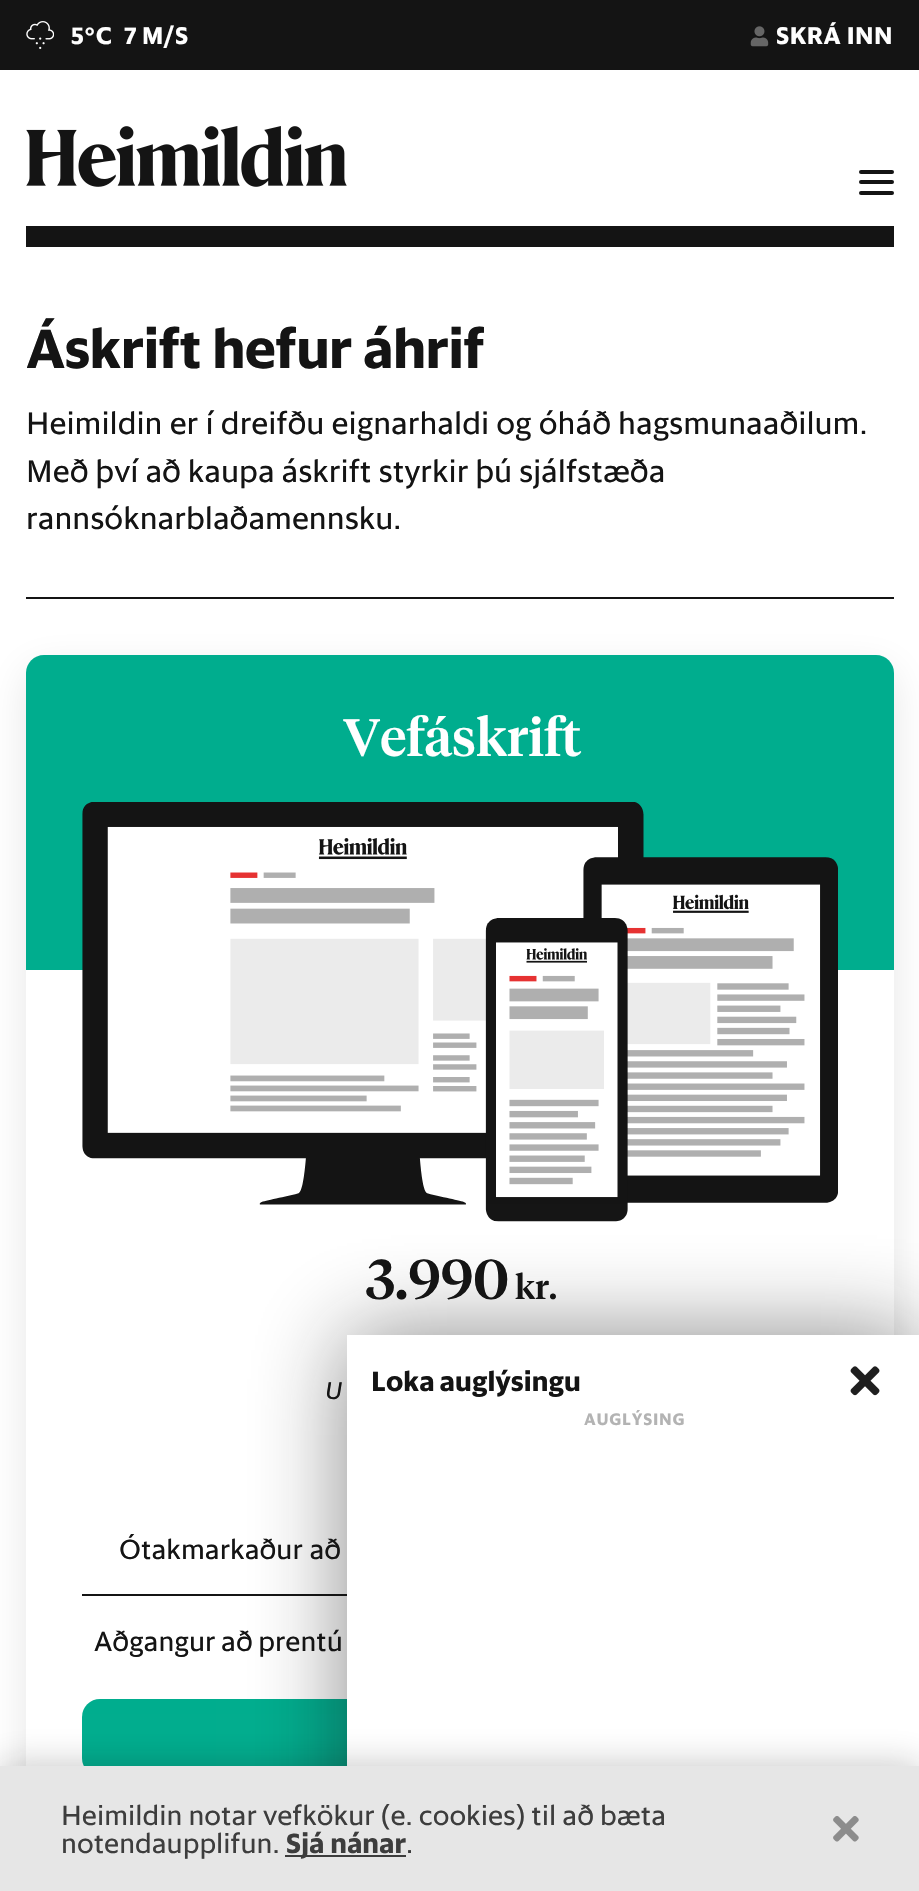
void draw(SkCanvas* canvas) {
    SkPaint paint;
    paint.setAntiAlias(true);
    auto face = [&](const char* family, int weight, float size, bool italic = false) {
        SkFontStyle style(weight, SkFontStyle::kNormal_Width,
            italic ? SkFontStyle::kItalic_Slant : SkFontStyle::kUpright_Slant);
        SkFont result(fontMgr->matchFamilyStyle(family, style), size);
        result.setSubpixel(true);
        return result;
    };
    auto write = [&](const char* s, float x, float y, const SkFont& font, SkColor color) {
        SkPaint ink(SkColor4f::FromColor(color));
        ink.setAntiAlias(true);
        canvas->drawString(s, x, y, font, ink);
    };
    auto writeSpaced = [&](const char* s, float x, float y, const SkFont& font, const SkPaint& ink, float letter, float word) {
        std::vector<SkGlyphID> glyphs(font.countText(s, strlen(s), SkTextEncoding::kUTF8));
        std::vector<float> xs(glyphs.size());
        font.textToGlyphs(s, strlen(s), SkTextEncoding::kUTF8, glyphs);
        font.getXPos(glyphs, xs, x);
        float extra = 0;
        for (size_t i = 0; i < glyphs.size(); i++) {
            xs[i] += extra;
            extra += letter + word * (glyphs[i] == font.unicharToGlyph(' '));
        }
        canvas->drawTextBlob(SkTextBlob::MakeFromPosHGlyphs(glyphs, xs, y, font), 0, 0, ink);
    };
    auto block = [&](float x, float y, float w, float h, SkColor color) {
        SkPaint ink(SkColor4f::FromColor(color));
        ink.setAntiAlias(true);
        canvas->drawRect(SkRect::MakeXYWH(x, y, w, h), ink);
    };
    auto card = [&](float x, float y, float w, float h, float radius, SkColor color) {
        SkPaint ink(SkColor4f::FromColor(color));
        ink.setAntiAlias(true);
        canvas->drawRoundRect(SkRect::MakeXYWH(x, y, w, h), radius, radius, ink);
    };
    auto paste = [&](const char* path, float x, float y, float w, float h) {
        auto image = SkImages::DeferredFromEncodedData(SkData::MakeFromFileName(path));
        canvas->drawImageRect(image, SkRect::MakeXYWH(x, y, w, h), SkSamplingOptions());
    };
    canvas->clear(SK_ColorWHITE);
    block(0, 0, 919, 70, SkColorSetRGB(20, 20, 20));
    paste("pic1.png", 26, 21, 28, 28);
    auto kFont1 = face("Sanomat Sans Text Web", 700, 24.5f);
    paint.setColor(SK_ColorWHITE);
    writeSpaced("5°C", 71, 44, kFont1, paint, 0.5f, 0);
    writeSpaced("7 M/S", 124, 44, kFont1, paint, 0.5f, -1);
    paste("pic2.png", 750, 26, 19, 21);
    writeSpaced("SKRÁ INN", 776, 44, kFont1, paint, 0.5f, 0);
    block(26, 226, 868, 21, SkColorSetRGB(20, 20, 20));
    paste("pic3.png", 26, 126, 321, 61);
    card(859, 170, 35, 4, 2, SkColorSetRGB(20, 20, 20));
    card(859, 180, 35, 4, 2, SkColorSetRGB(20, 20, 20));
    card(859, 191, 35, 4, 2, SkColorSetRGB(20, 20, 20));
    block(26, 597, 868, 2, SkColorSetRGB(20, 20, 20));
    auto kFont2 = face("Sanomat Sans Text Web", 700, 56);
    paint.setColor(SkColorSetRGB(20, 20, 20));
    writeSpaced("Áskrift hefur áhrif", 26, 368, kFont2, paint, -0.75f, 0);
    auto kFont3 = face("Sanomat Sans Text Web", 400, 31.5f);
    writeSpaced("Heimildin er í dreifðu eignarhaldi og óháð hagsmunaaðilum.", 26, 434, kFont3, paint, 0, -0.25f);
    writeSpaced("Með því að kaupa áskrift styrkir þú sjálfstæða", 26, 482, kFont3, paint, 0, -0.5f);
    write("rannsóknarblaðamennsku.", 26, 529, kFont3, SkColorSetRGB(20, 20, 20));
    paint.setColor(SkColorSetARGB(26, 20, 20, 20));
    paint.setMaskFilter(SkMaskFilter::MakeBlur(kNormal_SkBlurStyle, 21));
    canvas->drawRoundRect(SkRect::MakeXYWH(26, 669, 868, 1177), 18, 18, paint);
    paint.setMaskFilter(nullptr);
    card(26, 655, 868, 1177, 18, SK_ColorWHITE);
    paint.setColor(SkColorSetRGB(0, 173, 142));
    canvas->drawPath(SkPathBuilder().moveTo(44, 655).lineTo(876, 655).cubicTo(886, 655, 894, 663, 894, 673).lineTo(894, 970).lineTo(26, 970).lineTo(26, 673).cubicTo(26, 663, 34, 655, 44, 655).close().detach(), paint);
    auto kFont4 = face("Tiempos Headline", 500, 52.5f);
    write("Vefáskrift", 343, 756, kFont4, SK_ColorWHITE);
    paste("pic4.png", 82, 802, 756, 420);
    auto kFont5 = face("Tiempos Headline", 500, 56);
    write("3.990", 366, 1299, kFont5, SkColorSetRGB(20, 20, 20));
    auto kFont6 = face("Tiempos Headline", 500, 34);
    write("kr.", 515, 1299, kFont6, SkColorSetRGB(20, 20, 20));
    auto kFont7 = face("Sanomat Sans Text Web", 400, 24.5f, true);
    write("U", 325, 1399, kFont7, SkColorSetRGB(20, 20, 20));
    auto kFont8 = face("Sanomat Sans Text Web", 400, 28);
    write("Ótakmarkaður að", 119, 1559, kFont8, SkColorSetRGB(20, 20, 20));
    block(82, 1594, 265, 2, SkColorSetRGB(20, 20, 20));
    paint.setColor(SkColorSetRGB(20, 20, 20));
    writeSpaced("Aðgangur að prentú", 94, 1651, kFont8, paint, 0, -1);
    card(82, 1699, 756, 77, 18, SkColorSetRGB(0, 173, 142));
    paint.setColor(SkColorSetARGB(128, 20, 20, 20));
    paint.setMaskFilter(SkMaskFilter::MakeBlur(kNormal_SkBlurStyle, 44));
    canvas->drawRect(SkRect::MakeXYWH(347, 1335, 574, 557), paint);
    paint.setMaskFilter(nullptr);
    block(347, 1335, 572, 431, SK_ColorWHITE);
    auto kFont9 = face("Sanomat Sans Text Web", 700, 28);
    paint.setColor(SkColorSetRGB(20, 20, 20));
    writeSpaced("Loka auglýsingu", 371, 1391, kFont9, paint, 0, -1);
    paste("pic5.png", 850, 1366, 30, 30);
    auto kFont10 = face("Sanomat Sans Text Web", 700, 16.75f);
    paint.setColor(SkColorSetRGB(179, 179, 179));
    writeSpaced("AUGLÝSING", 584, 1425, kFont10, paint, 0.75f, 0);
    paint.setColor(SkColorSetARGB(64, 20, 20, 20));
    paint.setMaskFilter(SkMaskFilter::MakeBlur(kNormal_SkBlurStyle, 17.5f));
    canvas->drawRect(SkRect::MakeXYWH(0, 1766, 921, 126), paint);
    paint.setMaskFilter(nullptr);
    block(0, 1766, 919, 125, SkColorSetRGB(230, 230, 230));
    paint.setColor(SkColorSetRGB(61, 61, 61));
    writeSpaced("Heimildin notar vefkökur (e. cookies) til að bæta", 61, 1825, kFont8, paint, 0, -0.5f);
    write("notendaupplifun.", 61, 1853, kFont8, SkColorSetRGB(61, 61, 61));
    block(285, 1855, 121, 2, SkColorSetRGB(61, 61, 61));
    write("Sjá nánar", 286, 1853, kFont9, SkColorSetRGB(61, 61, 61));
    write(".", 406, 1853, kFont8, SkColorSetRGB(61, 61, 61));
    paste("pic6.png", 833, 1816, 26, 26);
}
